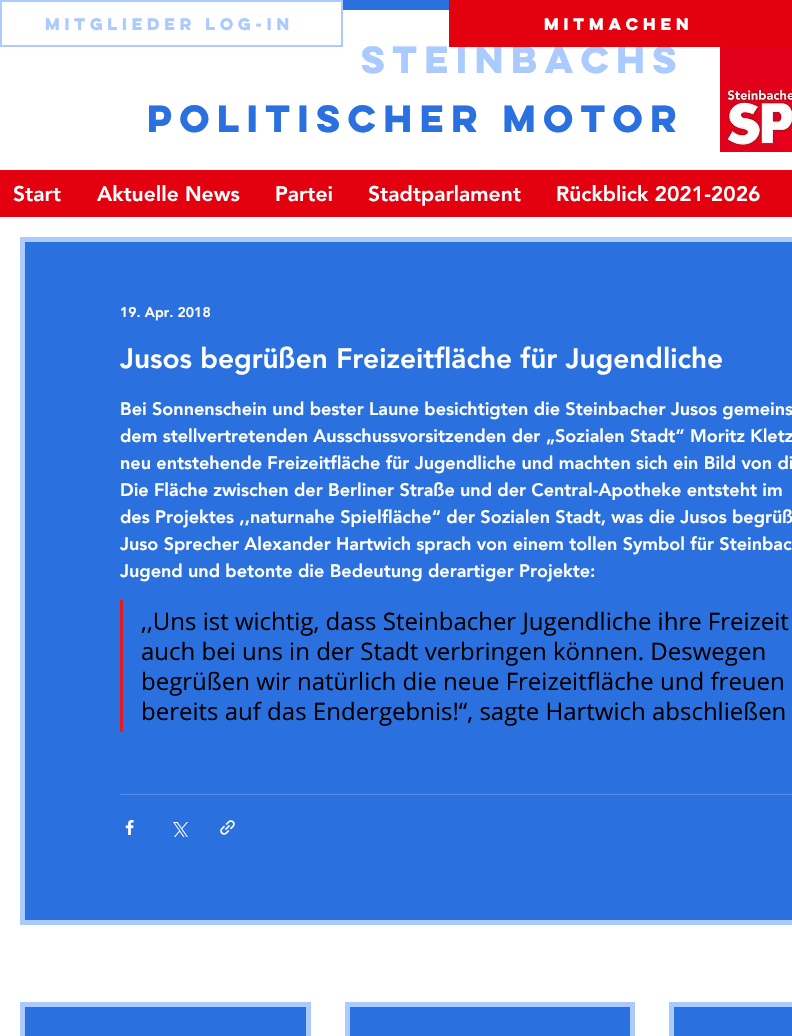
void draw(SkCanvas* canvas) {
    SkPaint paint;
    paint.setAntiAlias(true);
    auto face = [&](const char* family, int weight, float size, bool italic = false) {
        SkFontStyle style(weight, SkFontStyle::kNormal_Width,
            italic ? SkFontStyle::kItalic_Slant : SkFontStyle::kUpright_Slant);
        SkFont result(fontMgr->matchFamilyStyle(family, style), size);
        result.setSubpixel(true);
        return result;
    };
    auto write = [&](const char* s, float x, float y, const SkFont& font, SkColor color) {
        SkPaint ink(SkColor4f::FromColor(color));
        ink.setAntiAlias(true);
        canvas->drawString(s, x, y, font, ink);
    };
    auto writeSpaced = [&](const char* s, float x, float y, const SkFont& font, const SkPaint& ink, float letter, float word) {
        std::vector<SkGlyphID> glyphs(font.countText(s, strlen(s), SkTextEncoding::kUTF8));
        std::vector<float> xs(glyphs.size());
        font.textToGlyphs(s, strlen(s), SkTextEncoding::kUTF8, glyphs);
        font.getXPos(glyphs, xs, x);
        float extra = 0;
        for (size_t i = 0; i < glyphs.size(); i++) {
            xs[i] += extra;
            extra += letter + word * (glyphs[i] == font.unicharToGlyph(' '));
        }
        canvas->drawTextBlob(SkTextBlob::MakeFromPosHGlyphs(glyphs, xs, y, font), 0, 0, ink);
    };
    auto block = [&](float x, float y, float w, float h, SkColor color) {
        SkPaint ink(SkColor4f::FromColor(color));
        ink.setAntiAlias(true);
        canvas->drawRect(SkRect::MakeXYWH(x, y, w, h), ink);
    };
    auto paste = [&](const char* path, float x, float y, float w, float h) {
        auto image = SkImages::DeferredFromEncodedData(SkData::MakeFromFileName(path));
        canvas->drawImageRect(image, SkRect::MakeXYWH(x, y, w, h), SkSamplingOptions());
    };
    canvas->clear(SK_ColorWHITE);
    paint.setStyle(SkPaint::kStroke_Style);
    paint.setStrokeWidth(2);
    paint.setColor(SkColorSetRGB(171, 203, 255));
    canvas->drawRect(SkRect::MakeXYWH(1, 1, 341, 45), paint);
    auto kFont1 = face("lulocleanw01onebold", 700, 15);
    paint.setStyle(SkPaint::kFill_Style);
    writeSpaced("Mitglieder Log-in", 45, 30, kFont1, paint, 1.5f, 0);
    auto kFont2 = face("lulocleanw01onebold", 700, 34);
    write("STEINBACHS", 361, 73, kFont2, SkColorSetRGB(171, 203, 255));
    block(449, 0, 343, 47, SkColorSetRGB(227, 0, 15));
    paint.setColor(SK_ColorWHITE);
    writeSpaced("Mitmachen", 544, 30, kFont1, paint, 1.5f, 0);
    block(343, 0, 106, 10, SkColorSetRGB(42, 112, 222));
    paste("pic1.png", 720, 47, 72, 105);
    write("POLITISCHER MOTOR", 147, 132, kFont2, SkColorSetRGB(42, 112, 222));
    block(0, 170, 792, 47, SkColorSetRGB(227, 0, 15));
    auto kFont3 = face("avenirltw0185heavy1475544", 900, 21);
    write("Start", 13, 201, kFont3, SK_ColorWHITE);
    write("Aktuelle News", 97, 201, kFont3, SK_ColorWHITE);
    write("Partei", 275, 201, kFont3, SK_ColorWHITE);
    write("Stadtparlament", 368, 201, kFont3, SK_ColorWHITE);
    write("Rückblick 2021-2026", 556, 201, kFont3, SK_ColorWHITE);
    paint.setColor(SkColorSetRGB(42, 112, 222));
    canvas->drawRect(SkRect::MakeXYWH(22.5f, 239.5f, 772, 683), paint);
    paint.setStyle(SkPaint::kStroke_Style);
    paint.setStrokeWidth(5);
    paint.setColor(SkColorSetRGB(171, 203, 255));
    canvas->drawRect(SkRect::MakeXYWH(22.5f, 239.5f, 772, 683), paint);
    auto kFont4 = face("avenirltw0185heavy1475544", 900, 14);
    write("19. Apr. 2018", 120, 317, kFont4, SK_ColorWHITE);
    auto kFont5 = face("avenirltw0185heavy1475544", 900, 28);
    write("Jusos begrüßen Freizeitfläche für Jugendliche", 120, 368, kFont5, SK_ColorWHITE);
    auto kFont6 = face("avenirltw0185heavy1475544", 900, 18);
    write("Bei Sonnenschein und bester Laune besichtigten die Steinbacher Jusos gemeins", 120, 415, kFont6, SK_ColorWHITE);
    write("dem stellvertretenden Ausschussvorsitzenden der „Sozialen Stadt“ Moritz Kletz", 120, 442, kFont6, SK_ColorWHITE);
    write("neu entstehende Freizeitfläche für Jugendliche und machten sich ein Bild von di", 120, 469, kFont6, SK_ColorWHITE);
    write("Die Fläche zwischen der Berliner Straße und der Central-Apotheke entsteht im", 120, 496, kFont6, SK_ColorWHITE);
    write("des Projektes ,,naturnahe Spielfläche“ der Sozialen Stadt, was die Jusos begrüß", 120, 523, kFont6, SK_ColorWHITE);
    write("Juso Sprecher Alexander Hartwich sprach von einem tollen Symbol für Steinbac", 120, 550, kFont6, SK_ColorWHITE);
    write("Jugend und betonte die Bedeutung derartiger Projekte:", 120, 577, kFont6, SK_ColorWHITE);
    block(120, 600, 3, 132, SkColorSetRGB(226, 28, 33));
    auto kFont7 = face("Open Sans", 400, 24);
    write(",,Uns ist wichtig, dass Steinbacher Jugendliche ihre Freizeit", 141, 630, kFont7, SK_ColorBLACK);
    write("auch bei uns in der Stadt verbringen können. Deswegen", 141, 660, kFont7, SK_ColorBLACK);
    write("begrüßen wir natürlich die neue Freizeitfläche und freuen", 141, 690, kFont7, SK_ColorBLACK);
    write("bereits auf das Endergebnis!“, sagte Hartwich abschließen", 141, 720, kFont7, SK_ColorBLACK);
    block(120, 794, 672, 1, SkColorSetRGB(85, 141, 229));
    paste("pic2.png", 125, 820, 9, 15);
    paste("pic3.png", 173, 822, 15, 15);
    paste("pic4.png", 220, 820, 15, 15);
    paint.setStyle(SkPaint::kFill_Style);
    paint.setColor(SkColorSetRGB(42, 112, 222));
    canvas->drawRect(SkRect::MakeXYWH(22.5f, 1004.5f, 286, 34), paint);
    paint.setStyle(SkPaint::kStroke_Style);
    paint.setColor(SkColorSetRGB(171, 203, 255));
    canvas->drawRect(SkRect::MakeXYWH(22.5f, 1004.5f, 286, 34), paint);
    paint.setStyle(SkPaint::kFill_Style);
    paint.setColor(SkColorSetRGB(42, 112, 222));
    canvas->drawRect(SkRect::MakeXYWH(347.5f, 1004.5f, 285, 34), paint);
    paint.setStyle(SkPaint::kStroke_Style);
    paint.setColor(SkColorSetRGB(171, 203, 255));
    canvas->drawRect(SkRect::MakeXYWH(347.5f, 1004.5f, 285, 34), paint);
    paint.setStyle(SkPaint::kFill_Style);
    paint.setColor(SkColorSetRGB(42, 112, 222));
    canvas->drawRect(SkRect::MakeXYWH(671.5f, 1004.5f, 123, 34), paint);
    paint.setStyle(SkPaint::kStroke_Style);
    paint.setColor(SkColorSetRGB(171, 203, 255));
    canvas->drawRect(SkRect::MakeXYWH(671.5f, 1004.5f, 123, 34), paint);
}
